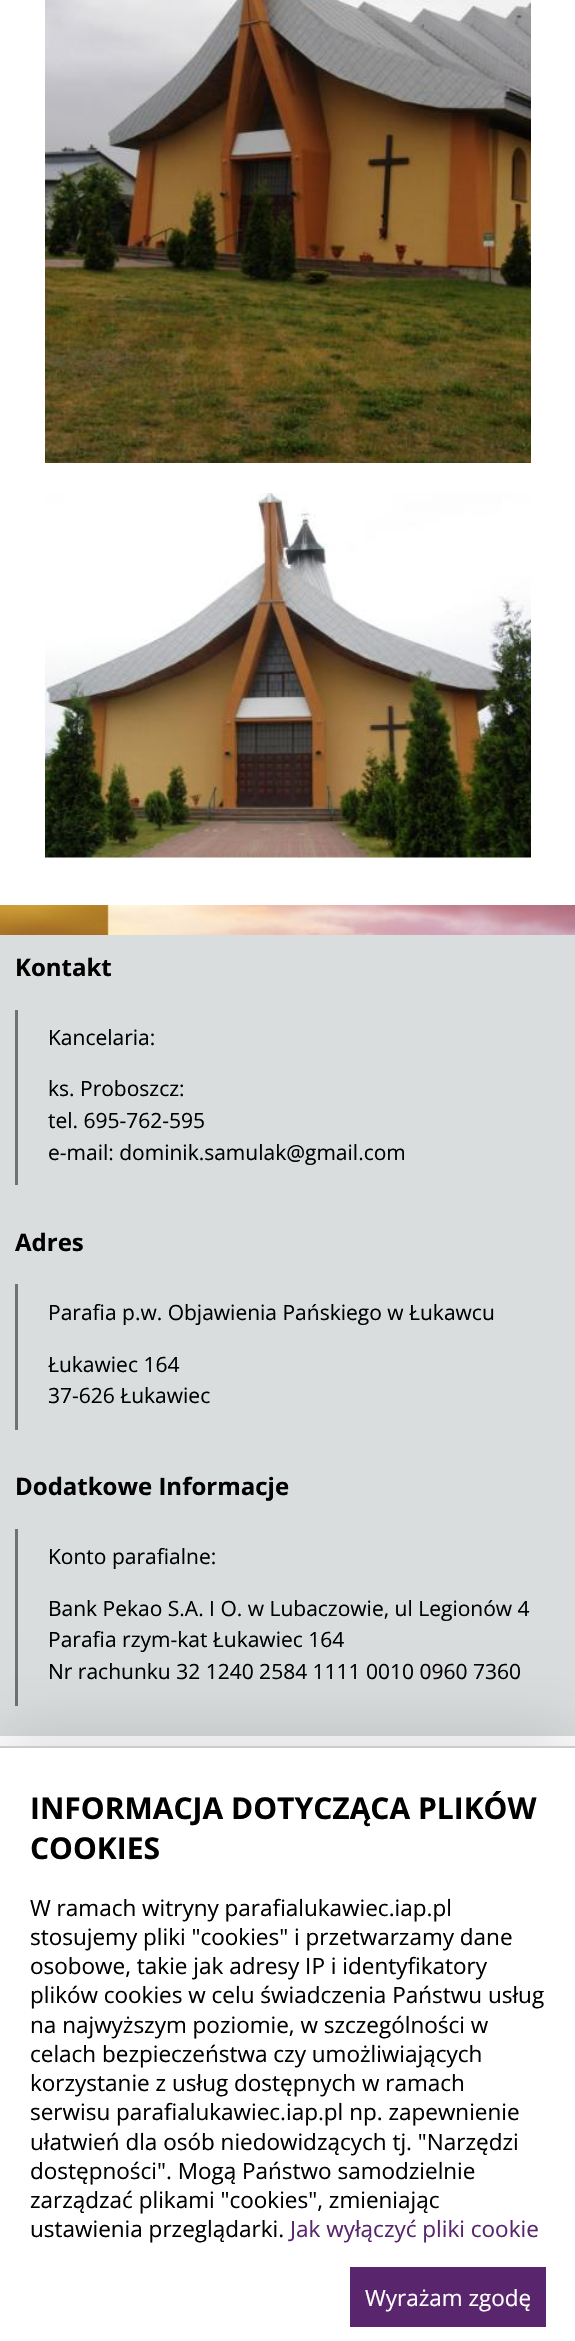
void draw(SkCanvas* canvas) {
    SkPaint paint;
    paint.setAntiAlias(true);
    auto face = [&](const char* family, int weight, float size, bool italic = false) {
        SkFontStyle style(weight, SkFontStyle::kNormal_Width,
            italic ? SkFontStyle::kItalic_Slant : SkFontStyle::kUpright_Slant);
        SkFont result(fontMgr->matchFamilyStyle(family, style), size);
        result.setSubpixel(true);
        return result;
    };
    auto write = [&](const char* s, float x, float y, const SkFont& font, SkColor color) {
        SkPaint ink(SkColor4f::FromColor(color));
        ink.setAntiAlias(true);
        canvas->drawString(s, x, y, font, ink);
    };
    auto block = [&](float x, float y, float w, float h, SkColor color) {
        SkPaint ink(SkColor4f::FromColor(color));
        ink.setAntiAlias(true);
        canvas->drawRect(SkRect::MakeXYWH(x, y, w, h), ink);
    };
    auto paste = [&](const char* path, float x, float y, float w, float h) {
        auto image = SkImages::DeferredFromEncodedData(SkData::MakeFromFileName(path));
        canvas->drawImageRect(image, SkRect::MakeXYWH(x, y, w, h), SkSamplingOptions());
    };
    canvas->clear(SK_ColorWHITE);
    paste("pic1.png", 0, 905, 575, 30);
    paste("pic2.png", 45, 0, 486, 463);
    paste("pic3.png", 45, 493, 486, 365);
    block(0, 935, 575, 801, SkColorSetRGB(218, 221, 222));
    auto kFont1 = face("Open Sans", 700, 24);
    write("Kontakt", 15, 976, kFont1, SK_ColorBLACK);
    block(15, 1010, 3, 175, SkColorSetRGB(113, 113, 113));
    auto kFont2 = face("Open Sans", 400, 21);
    write("Kancelaria:", 48, 1045, kFont2, SK_ColorBLACK);
    write("ks. Proboszcz:", 48, 1096, kFont2, SK_ColorBLACK);
    write("tel. 695-762-595", 48, 1128, kFont2, SK_ColorBLACK);
    write("e-mail: dominik.samulak@gmail.com", 48, 1160, kFont2, SK_ColorBLACK);
    write("Adres", 15, 1251, kFont1, SK_ColorBLACK);
    block(15, 1284, 3, 146, SkColorSetRGB(113, 113, 113));
    write("Parafia p.w. Objawienia Pańskiego w Łukawcu", 48, 1320, kFont2, SK_ColorBLACK);
    write("Łukawiec 164", 48, 1372, kFont2, SK_ColorBLACK);
    write("37-626 Łukawiec", 48, 1403, kFont2, SK_ColorBLACK);
    write("Dodatkowe Informacje", 15, 1495, kFont1, SK_ColorBLACK);
    block(15, 1529, 3, 177, SkColorSetRGB(113, 113, 113));
    write("Konto parafialne:", 48, 1564, kFont2, SK_ColorBLACK);
    write("Bank Pekao S.A. I O. w Lubaczowie, ul Legionów 4", 48, 1616, kFont2, SK_ColorBLACK);
    write("Parafia rzym-kat Łukawiec 164", 48, 1647, kFont2, SK_ColorBLACK);
    write("Nr rachunku 32 1240 2584 1111 0010 0960 7360", 48, 1679, kFont2, SK_ColorBLACK);
    paint.setColor(SkColorSetARGB(31, 0, 0, 0));
    paint.setMaskFilter(SkMaskFilter::MakeBlur(kNormal_SkBlurStyle, 30));
    canvas->drawRect(SkRect::MakeXYWH(0, 1728, 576, 596), paint);
    paint.setMaskFilter(nullptr);
    block(0, 1748, 575, 593, SK_ColorWHITE);
    block(0, 1746, 575, 2, SkColorSetRGB(204, 204, 204));
    auto kFont3 = face("Open Sans", 700, 30);
    write("INFORMACJA DOTYCZĄCA PLIKÓW", 30, 1819, kFont3, SK_ColorBLACK);
    write("COOKIES", 30, 1859, kFont3, SK_ColorBLACK);
    auto kFont4 = face("Open Sans", 400, 22.5f);
    write("W ramach witryny parafialukawiec.iap.pl", 30, 1916, kFont4, SK_ColorBLACK);
    write("stosujemy pliki \"cookies\" i przetwarzamy dane", 30, 1945, kFont4, SK_ColorBLACK);
    write("osobowe, takie jak adresy IP i identyfikatory", 30, 1974, kFont4, SK_ColorBLACK);
    write("plików cookies w celu świadczenia Państwu usług", 30, 2003, kFont4, SK_ColorBLACK);
    write("na najwyższym poziomie, w szczególności w", 30, 2033, kFont4, SK_ColorBLACK);
    write("celach bezpieczeństwa czy umożliwiających", 30, 2062, kFont4, SK_ColorBLACK);
    write("korzystanie z usług dostępnych w ramach", 30, 2091, kFont4, SK_ColorBLACK);
    write("serwisu parafialukawiec.iap.pl np. zapewnienie", 30, 2120, kFont4, SK_ColorBLACK);
    write("ułatwień dla osób niedowidzących tj. \"Narzędzi", 30, 2150, kFont4, SK_ColorBLACK);
    write("dostępności\". Mogą Państwo samodzielnie", 30, 2179, kFont4, SK_ColorBLACK);
    write("zarządzać plikami \"cookies\", zmieniając", 30, 2208, kFont4, SK_ColorBLACK);
    write("ustawienia przeglądarki.", 30, 2237, kFont4, SK_ColorBLACK);
    write("Jak wyłączyć pliki cookie", 290, 2237, kFont4, SkColorSetRGB(89, 37, 108));
    block(350, 2267, 196, 60, SkColorSetRGB(89, 37, 108));
    write("Wyrażam zgodę", 365, 2306, kFont4, SK_ColorWHITE);
}
